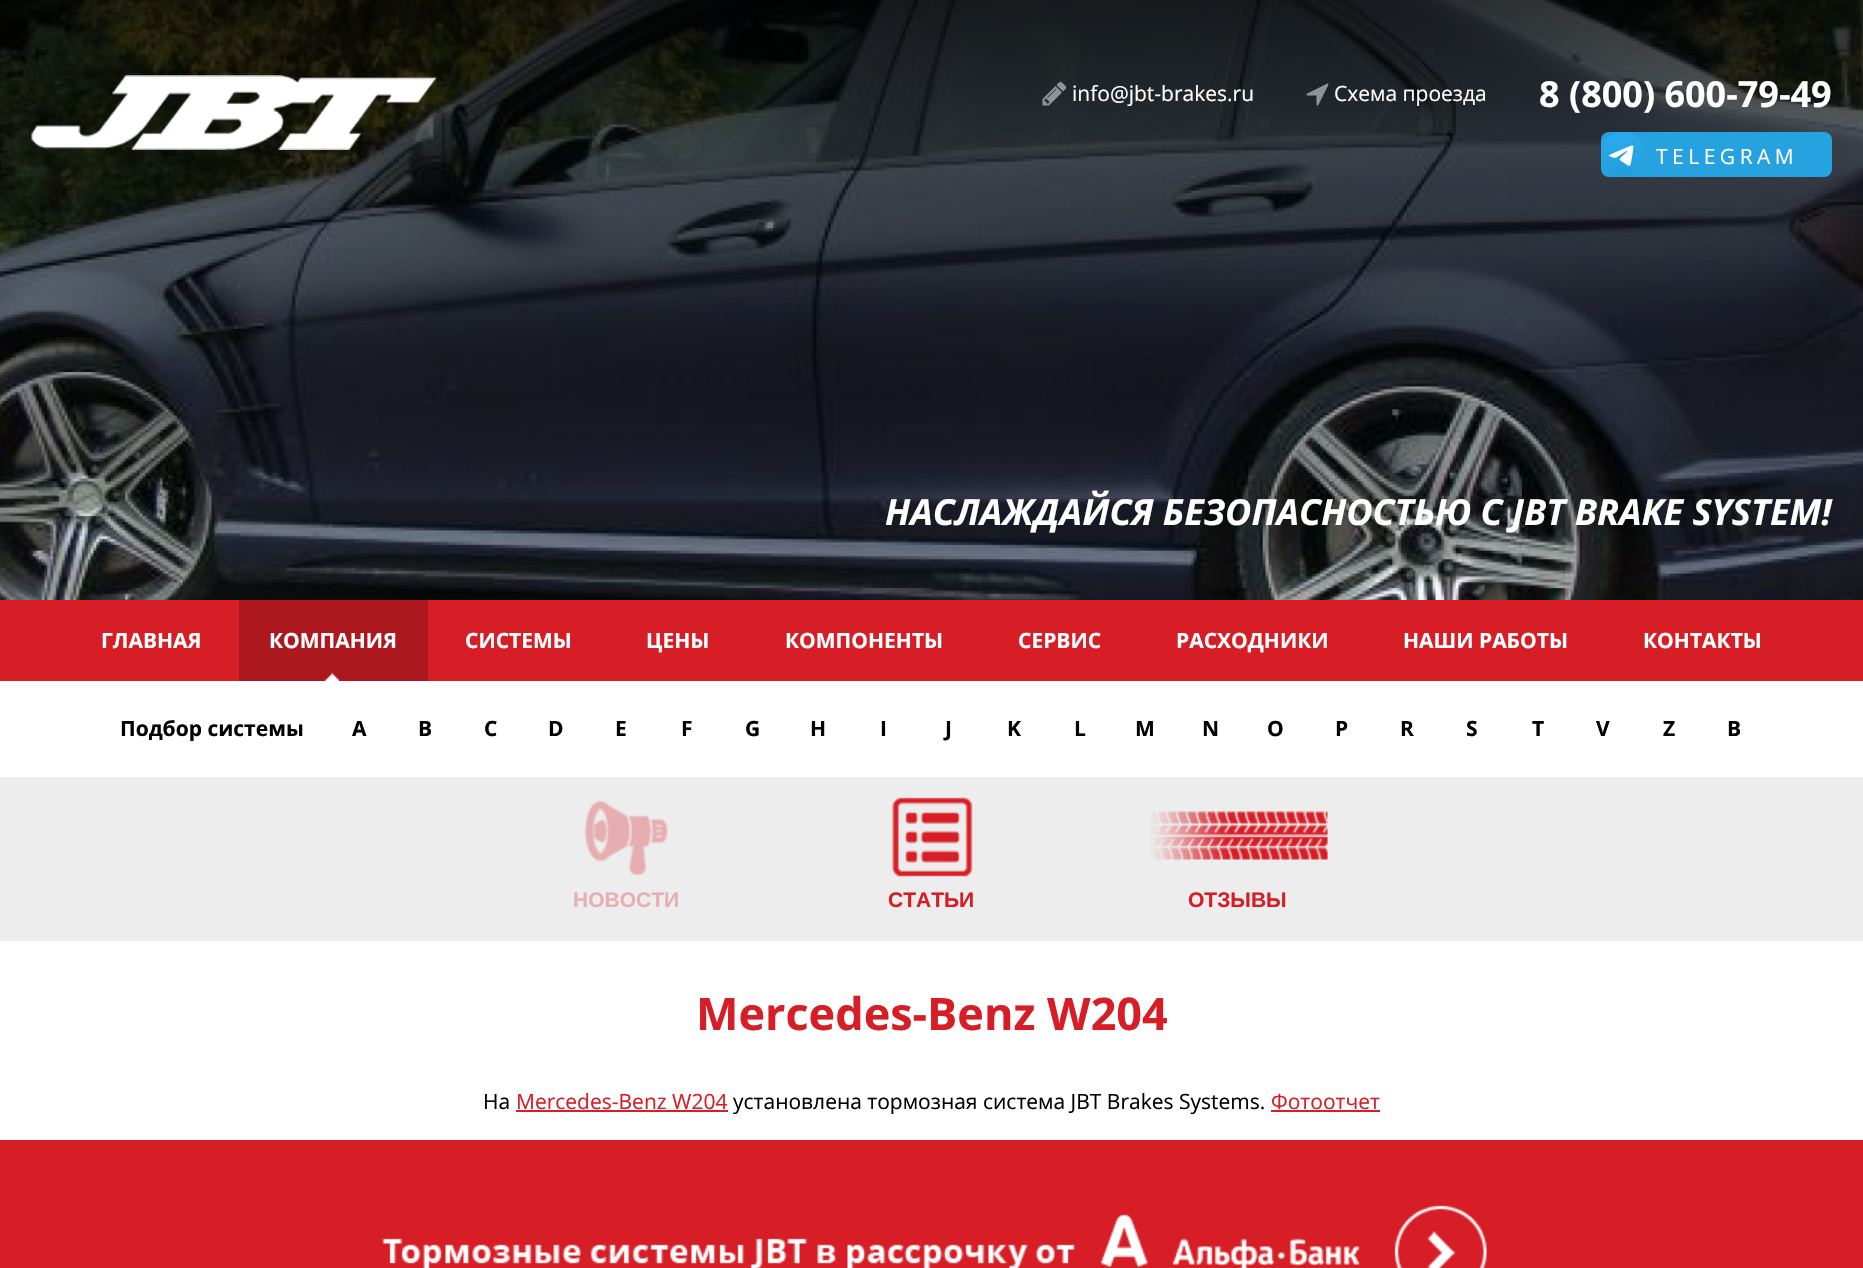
void draw(SkCanvas* canvas) {
    SkPaint paint;
    paint.setAntiAlias(true);
    auto face = [&](const char* family, int weight, float size, bool italic = false) {
        SkFontStyle style(weight, SkFontStyle::kNormal_Width,
            italic ? SkFontStyle::kItalic_Slant : SkFontStyle::kUpright_Slant);
        SkFont result(fontMgr->matchFamilyStyle(family, style), size);
        result.setSubpixel(true);
        return result;
    };
    auto write = [&](const char* s, float x, float y, const SkFont& font, SkColor color) {
        SkPaint ink(SkColor4f::FromColor(color));
        ink.setAntiAlias(true);
        canvas->drawString(s, x, y, font, ink);
    };
    auto writeSpaced = [&](const char* s, float x, float y, const SkFont& font, const SkPaint& ink, float letter, float word) {
        std::vector<SkGlyphID> glyphs(font.countText(s, strlen(s), SkTextEncoding::kUTF8));
        std::vector<float> xs(glyphs.size());
        font.textToGlyphs(s, strlen(s), SkTextEncoding::kUTF8, glyphs);
        font.getXPos(glyphs, xs, x);
        float extra = 0;
        for (size_t i = 0; i < glyphs.size(); i++) {
            xs[i] += extra;
            extra += letter + word * (glyphs[i] == font.unicharToGlyph(' '));
        }
        canvas->drawTextBlob(SkTextBlob::MakeFromPosHGlyphs(glyphs, xs, y, font), 0, 0, ink);
    };
    auto block = [&](float x, float y, float w, float h, SkColor color) {
        SkPaint ink(SkColor4f::FromColor(color));
        ink.setAntiAlias(true);
        canvas->drawRect(SkRect::MakeXYWH(x, y, w, h), ink);
    };
    auto card = [&](float x, float y, float w, float h, float radius, SkColor color) {
        SkPaint ink(SkColor4f::FromColor(color));
        ink.setAntiAlias(true);
        canvas->drawRoundRect(SkRect::MakeXYWH(x, y, w, h), radius, radius, ink);
    };
    auto paste = [&](const char* path, float x, float y, float w, float h) {
        auto image = SkImages::DeferredFromEncodedData(SkData::MakeFromFileName(path));
        canvas->drawImageRect(image, SkRect::MakeXYWH(x, y, w, h), SkSamplingOptions());
    };
    canvas->clear(SK_ColorWHITE);
    paste("pic1.png", 0, 0, 1863, 600);
    paste("pic2.png", 31, 75, 406, 75);
    paste("pic3.png", 1042, 81, 25, 25);
    auto kFont1 = face("Open Sans", 400, 21);
    write("info@jbt-brakes.ru", 1072, 101, kFont1, SK_ColorWHITE);
    paste("pic4.png", 1306, 83, 23, 23);
    write("Схема проезда", 1334, 101, kFont1, SK_ColorWHITE);
    auto kFont2 = face("Open Sans", 700, 36);
    write("8 (800) 600-79-49", 1539, 107, kFont2, SK_ColorWHITE);
    card(1601, 132, 231, 45, 8, SkColorSetRGB(37, 162, 223));
    paste("pic5.png", 1601, 132, 44, 45);
    paint.setColor(SK_ColorWHITE);
    writeSpaced("TELEGRAM", 1656, 164, kFont1, paint, 4.5f, 0);
    auto kFont3 = face("Open Sans", 700, 36, true);
    write("НАСЛАЖДАЙСЯ БЕЗОПАСНОСТЬЮ С JBT BRAKE SYSTEM!", 885, 525, kFont3, SK_ColorWHITE);
    block(0, 600, 1863, 81, SkColorSetRGB(215, 30, 38));
    auto kFont4 = face("Open Sans", 700, 21);
    write("ГЛАВНАЯ", 101, 648, kFont4, SK_ColorWHITE);
    block(239, 600, 189, 81, SkColorSetRGB(172, 24, 30));
    paste("pic6.png", 325, 673, 14, 8);
    write("КОМПАНИЯ", 269, 648, kFont4, SK_ColorWHITE);
    write("СИСТЕМЫ", 465, 648, kFont4, SK_ColorWHITE);
    write("ЦЕНЫ", 646, 648, kFont4, SK_ColorWHITE);
    write("КОМПОНЕНТЫ", 785, 648, kFont4, SK_ColorWHITE);
    write("СЕРВИС", 1018, 648, kFont4, SK_ColorWHITE);
    write("РАСХОДНИКИ", 1176, 648, kFont4, SK_ColorWHITE);
    write("НАШИ РАБОТЫ", 1403, 648, kFont4, SK_ColorWHITE);
    write("КОНТАКТЫ", 1643, 648, kFont4, SK_ColorWHITE);
    block(0, 777, 1863, 164, SkColorSetRGB(237, 237, 237));
    write("Подбор системы", 120, 736, kFont4, SK_ColorBLACK);
    write("A", 352, 736, kFont4, SK_ColorBLACK);
    write("B", 418, 736, kFont4, SK_ColorBLACK);
    write("C", 484, 736, kFont4, SK_ColorBLACK);
    write("D", 548, 736, kFont4, SK_ColorBLACK);
    write("E", 615, 736, kFont4, SK_ColorBLACK);
    write("F", 681, 736, kFont4, SK_ColorBLACK);
    write("G", 745, 736, kFont4, SK_ColorBLACK);
    write("H", 810, 736, kFont4, SK_ColorBLACK);
    write("I", 880, 736, kFont4, SK_ColorBLACK);
    write("J", 945, 736, kFont4, SK_ColorBLACK);
    write("K", 1007, 736, kFont4, SK_ColorBLACK);
    write("L", 1074, 736, kFont4, SK_ColorBLACK);
    write("M", 1135, 736, kFont4, SK_ColorBLACK);
    write("N", 1202, 736, kFont4, SK_ColorBLACK);
    write("O", 1267, 736, kFont4, SK_ColorBLACK);
    write("P", 1335, 736, kFont4, SK_ColorBLACK);
    write("R", 1400, 736, kFont4, SK_ColorBLACK);
    write("S", 1466, 736, kFont4, SK_ColorBLACK);
    write("T", 1532, 736, kFont4, SK_ColorBLACK);
    write("V", 1596, 736, kFont4, SK_ColorBLACK);
    write("Z", 1663, 736, kFont4, SK_ColorBLACK);
    write("В", 1727, 736, kFont4, SK_ColorBLACK);
    paste("pic7.png", 584, 800, 84, 75);
    auto kFont5 = face("Liberation Sans", 700, 21);
    write("НОВОСТИ", 573, 907, kFont5, SkColorSetRGB(230, 175, 177));
    paste("pic8.png", 892, 797, 81, 80);
    write("СТАТЬИ", 888, 907, kFont5, SkColorSetRGB(215, 30, 38));
    paste("pic9.png", 1150, 811, 178, 49);
    write("ОТЗЫВЫ", 1188, 907, kFont5, SkColorSetRGB(215, 30, 38));
    auto kFont6 = face("Open Sans", 700, 45);
    write("Mercedes-Benz W204", 696, 1030, kFont6, SkColorSetRGB(215, 30, 38));
    write("На", 483, 1109, kFont1, SK_ColorBLACK);
    write("Mercedes-Benz W204", 516, 1109, kFont1, SkColorSetRGB(215, 30, 38));
    block(516, 1110, 212, 2, SkColorSetRGB(215, 30, 38));
    write("установлена тормозная система JBT Brakes Systems.", 733, 1109, kFont1, SK_ColorBLACK);
    write("Фотоотчет", 1271, 1109, kFont1, SkColorSetRGB(215, 30, 38));
    block(1271, 1110, 109, 2, SkColorSetRGB(215, 30, 38));
    block(0, 1140, 1863, 128, SkColorSetRGB(215, 30, 38));
    paste("pic10.png", 382, 1205, 1105, 63);
}
